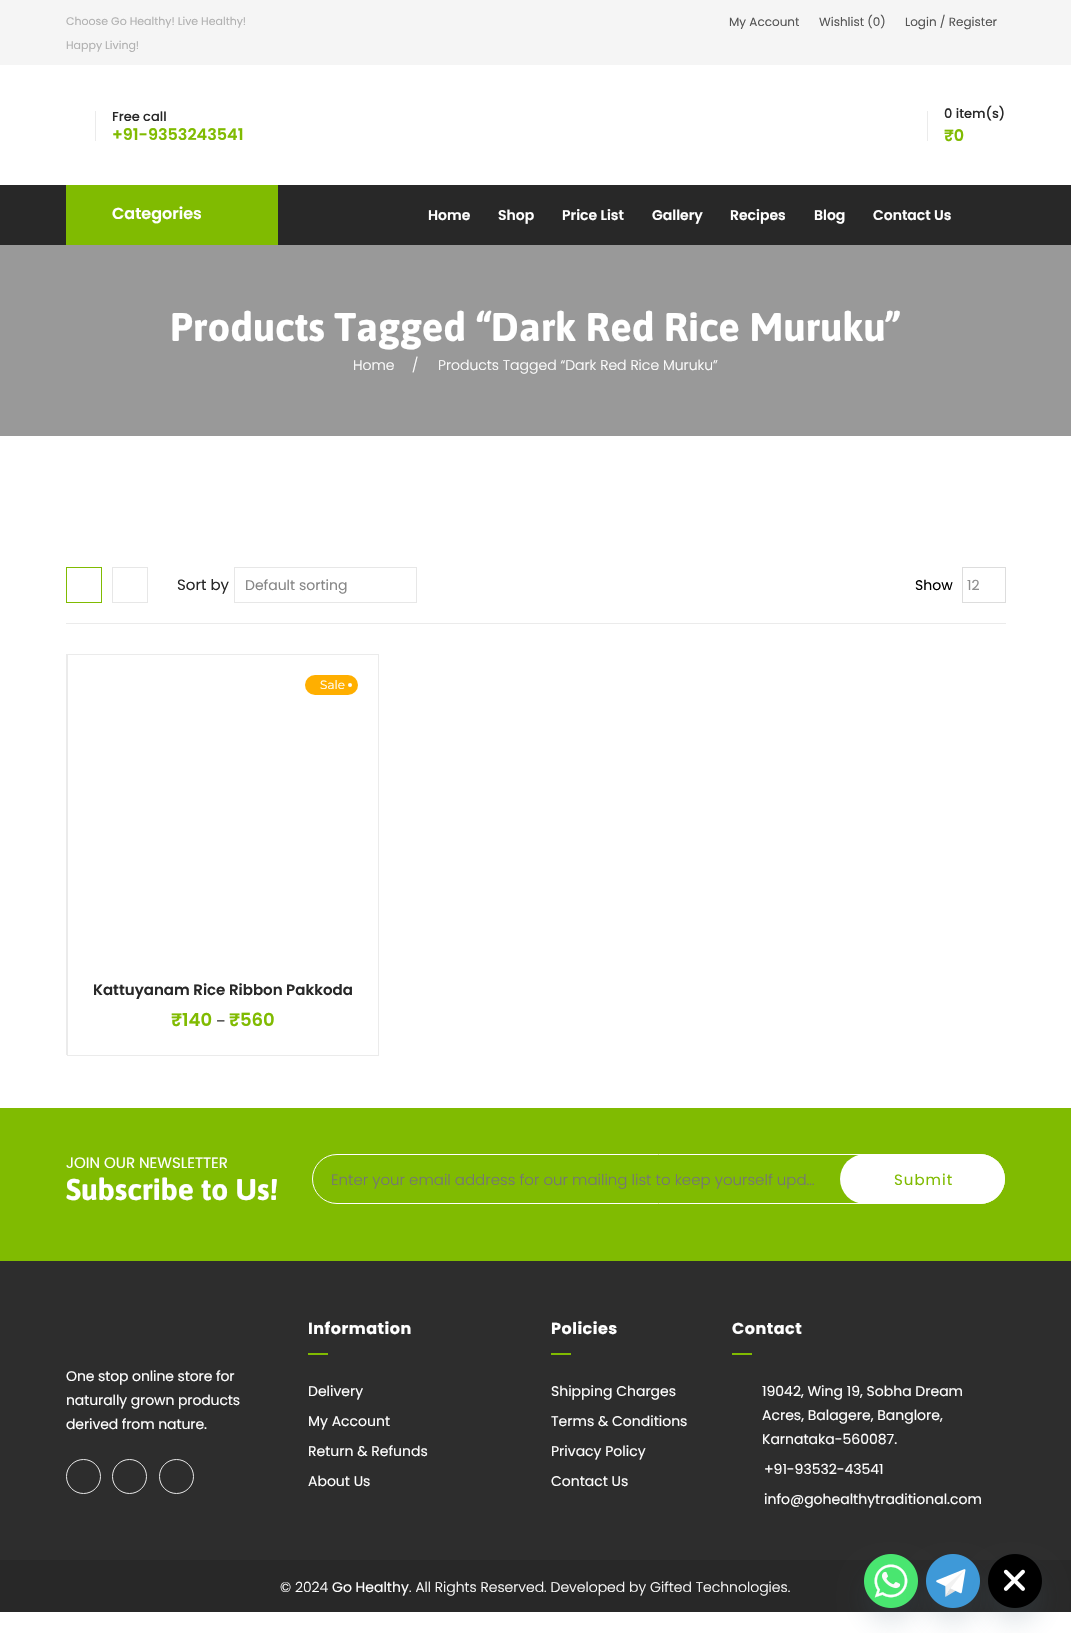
void draw(SkCanvas* canvas) {
    SkPaint paint;
    paint.setAntiAlias(true);
    auto face = [&](const char* family, int weight, float size, bool italic = false) {
        SkFontStyle style(weight, SkFontStyle::kNormal_Width,
            italic ? SkFontStyle::kItalic_Slant : SkFontStyle::kUpright_Slant);
        SkFont result(fontMgr->matchFamilyStyle(family, style), size);
        result.setSubpixel(true);
        return result;
    };
    auto write = [&](const char* s, float x, float y, const SkFont& font, SkColor color) {
        SkPaint ink(SkColor4f::FromColor(color));
        ink.setAntiAlias(true);
        canvas->drawString(s, x, y, font, ink);
    };
    auto writeSpaced = [&](const char* s, float x, float y, const SkFont& font, const SkPaint& ink, float letter, float word) {
        std::vector<SkGlyphID> glyphs(font.countText(s, strlen(s), SkTextEncoding::kUTF8));
        std::vector<float> xs(glyphs.size());
        font.textToGlyphs(s, strlen(s), SkTextEncoding::kUTF8, glyphs);
        font.getXPos(glyphs, xs, x);
        float extra = 0;
        for (size_t i = 0; i < glyphs.size(); i++) {
            xs[i] += extra;
            extra += letter + word * (glyphs[i] == font.unicharToGlyph(' '));
        }
        canvas->drawTextBlob(SkTextBlob::MakeFromPosHGlyphs(glyphs, xs, y, font), 0, 0, ink);
    };
    auto block = [&](float x, float y, float w, float h, SkColor color) {
        SkPaint ink(SkColor4f::FromColor(color));
        ink.setAntiAlias(true);
        canvas->drawRect(SkRect::MakeXYWH(x, y, w, h), ink);
    };
    auto card = [&](float x, float y, float w, float h, float radius, SkColor color) {
        SkPaint ink(SkColor4f::FromColor(color));
        ink.setAntiAlias(true);
        canvas->drawRoundRect(SkRect::MakeXYWH(x, y, w, h), radius, radius, ink);
    };
    auto paste = [&](const char* path, float x, float y, float w, float h) {
        auto image = SkImages::DeferredFromEncodedData(SkData::MakeFromFileName(path));
        canvas->drawImageRect(image, SkRect::MakeXYWH(x, y, w, h), SkSamplingOptions());
    };
    canvas->clear(SK_ColorWHITE);
    block(0, 0, 1071, 65, SkColorSetRGB(245, 245, 245));
    auto kFont1 = face("Poppins", 400, 11);
    write("Choose Go Healthy! Live Healthy!", 66, 25, kFont1, SkColorSetRGB(177, 177, 177));
    write("Happy Living!", 66, 49, kFont1, SkColorSetRGB(177, 177, 177));
    auto kFont2 = face("Poppins", 400, 12);
    write("My Account", 729, 26, kFont2, SkColorSetRGB(85, 85, 85));
    write("Wishlist (0)", 819, 26, kFont2, SkColorSetRGB(85, 85, 85));
    write("Login / Register", 905, 26, kFont2, SkColorSetRGB(85, 85, 85));
    block(95, 111, 1, 30, SkColorSetRGB(235, 235, 235));
    auto kFont3 = face("Poppins", 500, 13);
    write("Free call", 112, 121, kFont3, SkColorSetRGB(40, 40, 40));
    auto kFont4 = face("Poppins", 600, 16);
    write("+91-9353243541", 112, 140, kFont4, SkColorSetRGB(128, 187, 1));
    block(927, 111, 1, 30, SkColorSetRGB(235, 235, 235));
    write("0 item(s)", 944, 118, kFont3, SkColorSetRGB(40, 40, 40));
    write("₹0", 944, 141, kFont4, SkColorSetRGB(128, 187, 1));
    block(0, 185, 1071, 60, SkColorSetRGB(40, 40, 40));
    block(66, 185, 212, 60, SkColorSetRGB(128, 187, 1));
    write("Categories", 112, 219, kFont4, SK_ColorWHITE);
    auto kFont5 = face("Poppins", 600, 14);
    write("Home", 428, 220, kFont5, SK_ColorWHITE);
    write("Shop", 498, 220, kFont5, SK_ColorWHITE);
    write("Price List", 562, 220, kFont5, SK_ColorWHITE);
    write("Gallery", 652, 220, kFont5, SK_ColorWHITE);
    write("Recipes", 730, 220, kFont5, SK_ColorWHITE);
    write("Blog", 814, 220, kFont5, SK_ColorWHITE);
    write("Contact Us", 873, 220, kFont5, SK_ColorWHITE);
    block(0, 245, 1071, 191, SkColorSetRGB(153, 153, 153));
    auto kFont6 = face("Asap", 700, 40);
    write("Products Tagged “Dark Red Rice Muruku”", 170, 341, kFont6, SK_ColorWHITE);
    auto kFont7 = face("Poppins", 300, 14);
    write("Home", 353, 370, kFont7, SK_ColorWHITE);
    write("/", 412, 370, kFont7, SK_ColorWHITE);
    write("Products Tagged “Dark Red Rice Muruku”", 438, 370, kFont7, SK_ColorWHITE);
    block(66, 623, 940, 1, SkColorSetRGB(235, 235, 235));
    paint.setStyle(SkPaint::kStroke_Style);
    paint.setStrokeWidth(1);
    paint.setColor(SkColorSetRGB(128, 187, 1));
    canvas->drawRect(SkRect::MakeXYWH(66.5f, 567.5f, 35, 35), paint);
    paint.setColor(SkColorSetRGB(231, 231, 231));
    canvas->drawRect(SkRect::MakeXYWH(112.5f, 567.5f, 35, 35), paint);
    auto kFont8 = face("Poppins", 400, 15);
    write("Sort by", 177, 590, kFont8, SkColorSetRGB(40, 40, 40));
    canvas->drawRect(SkRect::MakeXYWH(234.5f, 567.5f, 182, 35), paint);
    auto kFont9 = face("Poppins", 400, 14);
    write("Default sorting", 245, 590, kFont9, SkColorSetRGB(134, 134, 134));
    write("Show", 915, 590, kFont9, SK_ColorBLACK);
    paint.setColor(SkColorSetRGB(221, 221, 221));
    canvas->drawRect(SkRect::MakeXYWH(962.5f, 567.5f, 43, 35), paint);
    write("12", 967, 590, kFont9, SkColorSetRGB(143, 143, 143));
    block(66, 654, 1, 401, SkColorSetRGB(235, 235, 235));
    paint.setColor(SkColorSetRGB(235, 235, 235));
    canvas->drawRect(SkRect::MakeXYWH(67.5f, 654.5f, 311, 401), paint);
    card(305, 675, 53, 20, 10, SkColorSetRGB(255, 175, 0));
    auto kFont10 = face("Montserrat", 400, 12);
    write("Sale", 320, 689, kFont10, SK_ColorWHITE);
    paint.setStyle(SkPaint::kFill_Style);
    paint.setColor(SK_ColorWHITE);
    canvas->drawCircle(350, 685, 2, paint);
    auto kFont11 = face("Poppins", 600, 15);
    write("Kattuyanam Rice Ribbon Pakkoda", 93, 995, kFont11, SkColorSetRGB(40, 40, 40));
    auto kFont12 = face("Poppins", 600, 18);
    write("₹140", 171, 1026, kFont12, SkColorSetRGB(128, 187, 1));
    write("–", 216, 1026, kFont9, SkColorSetRGB(40, 40, 40));
    write("₹560", 229, 1026, kFont12, SkColorSetRGB(128, 187, 1));
    block(0, 1108, 1071, 153, SkColorSetRGB(128, 187, 1));
    write("JOIN OUR NEWSLETTER", 66, 1168, kFont8, SK_ColorWHITE);
    auto kFont13 = face("Asap", 700, 30);
    write("Subscribe to Us!", 66, 1200, kFont13, SK_ColorWHITE);
    paint.setStyle(SkPaint::kStroke_Style);
    canvas->drawRoundRect(SkRect::MakeXYWH(312.5f, 1154.5f, 692, 49), 24.5f, 24.5f, paint);
    auto kFont14 = face("Poppins", 300, 15);
    write("Enter your email address for our mailing list to keep yourself upd…", 331, 1185, kFont14, SkColorSetRGB(117, 117, 117));
    card(840, 1154, 165, 50, 25, SK_ColorWHITE);
    paint.setStyle(SkPaint::kFill_Style);
    paint.setColor(SkColorSetRGB(128, 187, 1));
    writeSpaced("Submit", 894, 1185, kFont8, paint, 1, 0);
    block(0, 1261, 1071, 299, SkColorSetRGB(45, 45, 45));
    paint.setColor(SK_ColorWHITE);
    writeSpaced("One stop online store for", 66, 1381, kFont9, paint, -0.1f, 0);
    writeSpaced("naturally grown products", 66, 1405, kFont9, paint, -0.1f, 0);
    writeSpaced("derived from nature.", 66, 1429, kFont9, paint, -0.1f, 0);
    paint.setStyle(SkPaint::kStroke_Style);
    paint.setColor(SkColorSetRGB(231, 231, 231));
    canvas->drawCircle(83.5f, 1476.5f, 17, paint);
    canvas->drawCircle(129.5f, 1476.5f, 17, paint);
    canvas->drawCircle(176.5f, 1476.5f, 17, paint);
    auto kFont15 = face("Poppins", 700, 16);
    paint.setStyle(SkPaint::kFill_Style);
    paint.setColor(SK_ColorWHITE);
    writeSpaced("Information", 308, 1334, kFont15, paint, 0.5f, 0);
    block(308, 1353, 20, 2, SkColorSetRGB(128, 187, 1));
    write("Delivery", 308, 1396, kFont9, SK_ColorWHITE);
    write("My Account", 308, 1426, kFont9, SK_ColorWHITE);
    write("Return & Refunds", 308, 1456, kFont9, SK_ColorWHITE);
    write("About Us", 308, 1486, kFont9, SK_ColorWHITE);
    writeSpaced("Policies", 551, 1334, kFont15, paint, 0.5f, 0);
    block(551, 1353, 20, 2, SkColorSetRGB(128, 187, 1));
    write("Shipping Charges", 551, 1396, kFont9, SK_ColorWHITE);
    write("Terms & Conditions", 551, 1426, kFont9, SK_ColorWHITE);
    write("Privacy Policy", 551, 1456, kFont9, SK_ColorWHITE);
    write("Contact Us", 551, 1486, kFont9, SK_ColorWHITE);
    writeSpaced("Contact", 732, 1334, kFont15, paint, 0.5f, 0);
    block(732, 1353, 20, 2, SkColorSetRGB(128, 187, 1));
    write("19042, Wing 19, Sobha Dream", 762, 1396, kFont9, SK_ColorWHITE);
    write("Acres, Balagere, Banglore,", 762, 1420, kFont9, SK_ColorWHITE);
    write("Karnataka-560087.", 762, 1444, kFont9, SK_ColorWHITE);
    write("+91-93532-43541", 764, 1474, kFont9, SK_ColorWHITE);
    write("info@gohealthytraditional.com", 764, 1504, kFont9, SK_ColorWHITE);
    block(0, 1560, 1071, 52, SkColorSetRGB(40, 40, 40));
    write("© 2024", 280, 1592, kFont7, SK_ColorWHITE);
    write("Go Healthy", 332, 1592, kFont9, SK_ColorWHITE);
    write(". All Rights Reserved. Developed by Gifted Technologies.", 409, 1592, kFont7, SK_ColorWHITE);
    paint.setColor(SkColorSetARGB(41, 73, 104, 126));
    paint.setMaskFilter(SkMaskFilter::MakeBlur(kNormal_SkBlurStyle, 12));
    canvas->drawRoundRect(SkRect::MakeXYWH(864, 1570, 54, 54), 27, 27, paint);
    paint.setMaskFilter(nullptr);
    paste("pic1.png", 864, 1554, 54, 54);
    paint.setMaskFilter(SkMaskFilter::MakeBlur(kNormal_SkBlurStyle, 12));
    canvas->drawRoundRect(SkRect::MakeXYWH(926, 1570, 54, 54), 27, 27, paint);
    paint.setMaskFilter(nullptr);
    paste("pic2.png", 926, 1554, 54, 54);
    paint.setMaskFilter(SkMaskFilter::MakeBlur(kNormal_SkBlurStyle, 12));
    canvas->drawRoundRect(SkRect::MakeXYWH(988, 1570, 54, 54), 27, 27, paint);
    paint.setMaskFilter(nullptr);
    paste("pic3.png", 988, 1554, 54, 54);
}
